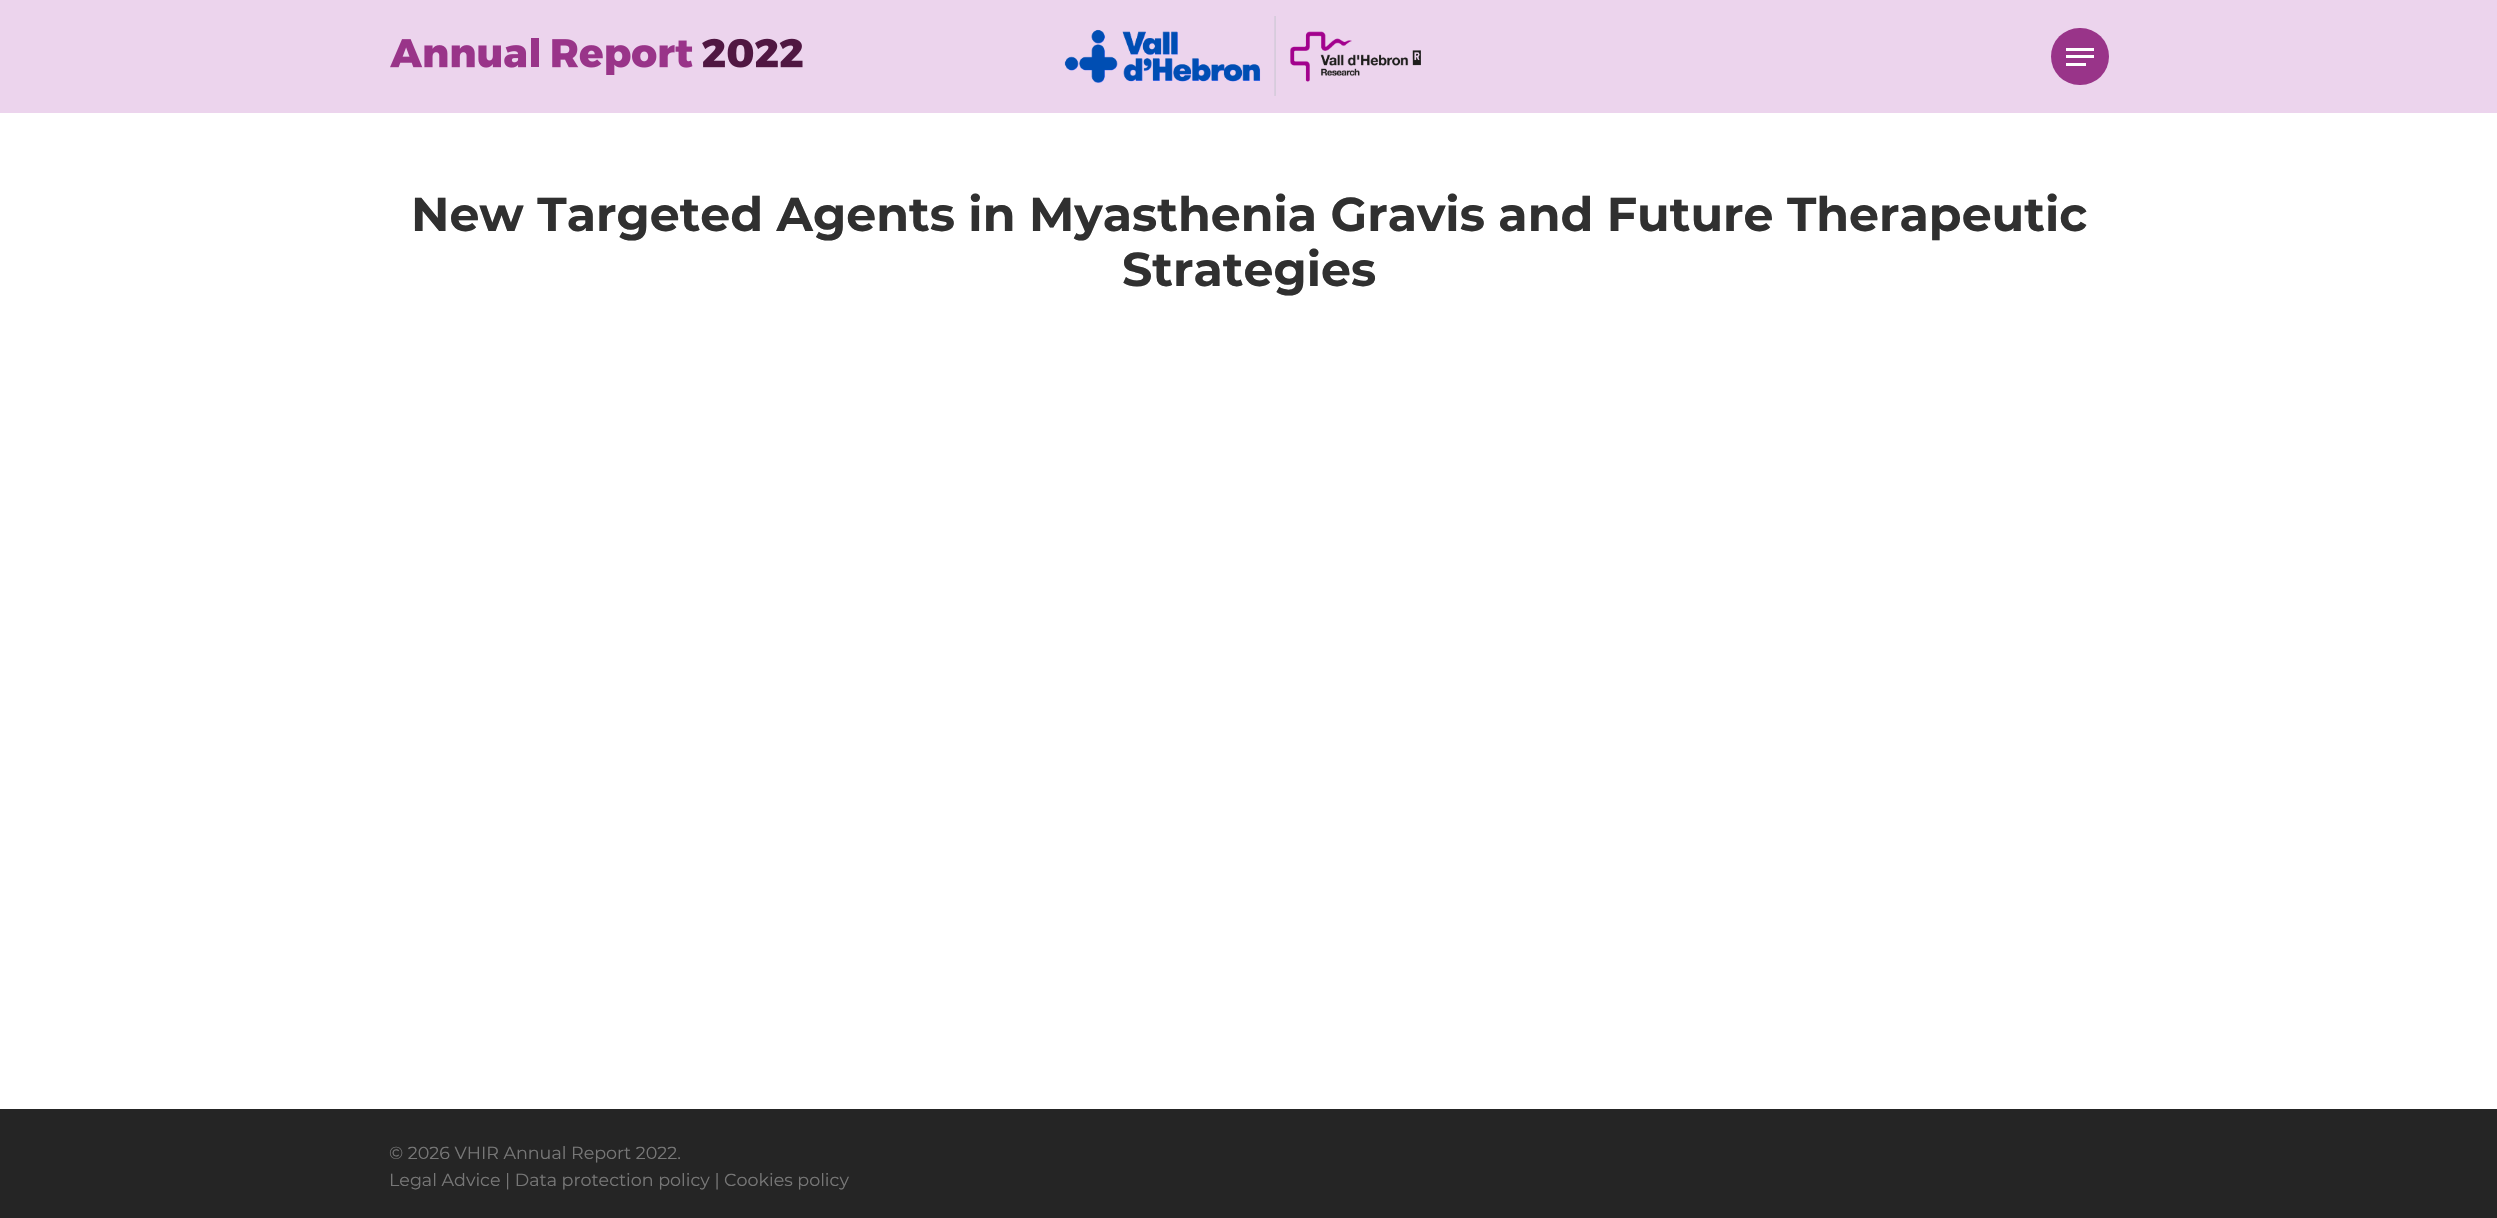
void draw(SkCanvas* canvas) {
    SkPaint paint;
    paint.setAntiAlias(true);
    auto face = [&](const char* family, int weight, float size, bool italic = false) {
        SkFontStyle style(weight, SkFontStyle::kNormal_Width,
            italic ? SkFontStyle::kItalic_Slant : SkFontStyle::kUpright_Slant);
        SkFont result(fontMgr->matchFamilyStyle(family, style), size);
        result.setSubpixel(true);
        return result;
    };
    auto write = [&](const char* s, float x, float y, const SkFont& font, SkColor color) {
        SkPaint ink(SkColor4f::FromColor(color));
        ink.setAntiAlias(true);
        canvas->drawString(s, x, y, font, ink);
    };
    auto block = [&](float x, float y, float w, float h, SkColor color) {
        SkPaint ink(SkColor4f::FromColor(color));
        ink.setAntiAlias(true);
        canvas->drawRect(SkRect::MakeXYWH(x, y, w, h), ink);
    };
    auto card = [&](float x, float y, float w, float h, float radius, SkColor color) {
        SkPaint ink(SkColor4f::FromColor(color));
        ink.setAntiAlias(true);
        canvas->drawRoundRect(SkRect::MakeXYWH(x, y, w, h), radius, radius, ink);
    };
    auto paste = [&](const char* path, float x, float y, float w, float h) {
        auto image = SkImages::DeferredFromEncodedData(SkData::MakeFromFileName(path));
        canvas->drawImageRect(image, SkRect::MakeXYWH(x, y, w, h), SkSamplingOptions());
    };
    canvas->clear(SK_ColorWHITE);
    block(0, 0, 2497, 113, SkColorSetRGB(236, 212, 237));
    paste("pic1.png", 390, 38, 413, 37);
    paste("pic2.png", 1064, 16, 357, 80);
    card(2051, 28, 58, 57, 28.5f, SkColorSetRGB(153, 52, 137));
    block(2066, 48, 28, 3, SK_ColorWHITE);
    block(2066, 63, 20, 3, SK_ColorWHITE);
    block(2066, 55, 28, 3, SK_ColorWHITE);
    auto kFont1 = face("Montserrat", 700, 47.5f);
    write("New Targeted Agents in Myasthenia Gravis and Future Therapeutic", 411, 231, kFont1, SkColorSetRGB(48, 48, 48));
    write("Strategies", 1122, 286, kFont1, SkColorSetRGB(48, 48, 48));
    block(0, 1109, 2497, 109, SkColorSetRGB(37, 37, 37));
    auto kFont2 = face("Montserrat", 400, 17.5f);
    write("© 2026 VHIR Annual Report 2022.", 389, 1159, kFont2, SkColorSetRGB(119, 119, 119));
    write("Legal Advice | Data protection policy | Cookies policy", 389, 1186, kFont2, SkColorSetRGB(119, 119, 119));
}
